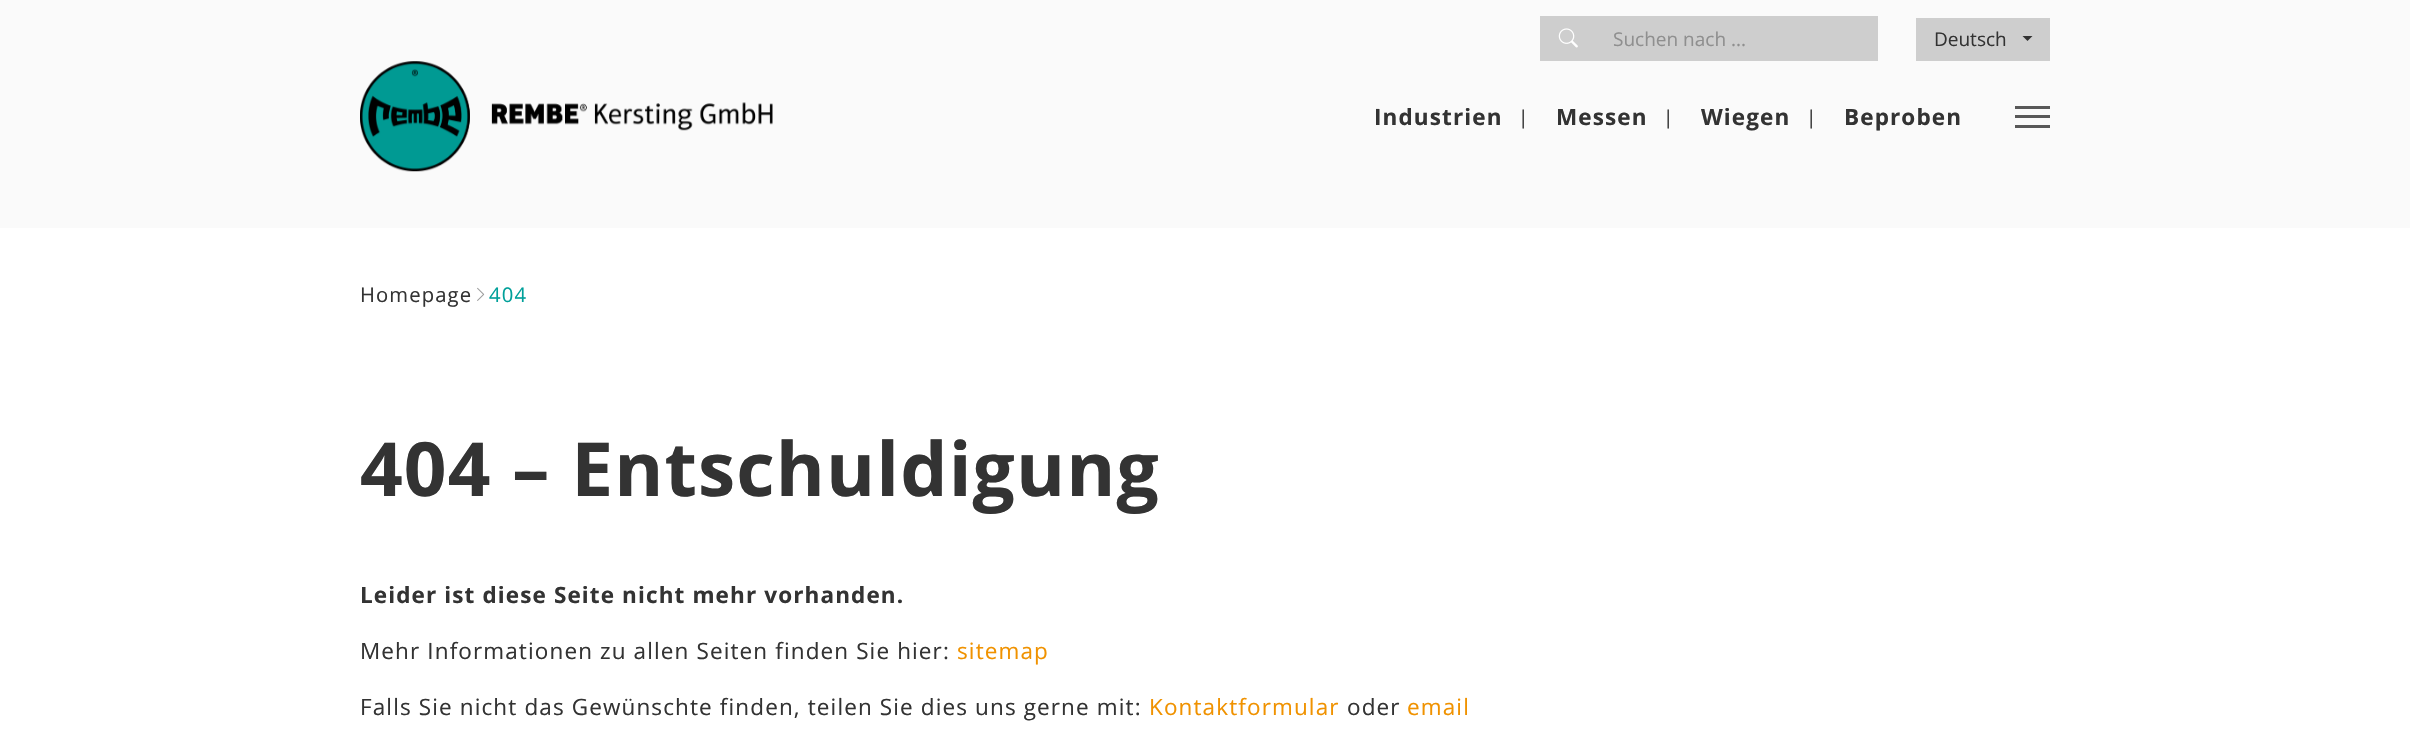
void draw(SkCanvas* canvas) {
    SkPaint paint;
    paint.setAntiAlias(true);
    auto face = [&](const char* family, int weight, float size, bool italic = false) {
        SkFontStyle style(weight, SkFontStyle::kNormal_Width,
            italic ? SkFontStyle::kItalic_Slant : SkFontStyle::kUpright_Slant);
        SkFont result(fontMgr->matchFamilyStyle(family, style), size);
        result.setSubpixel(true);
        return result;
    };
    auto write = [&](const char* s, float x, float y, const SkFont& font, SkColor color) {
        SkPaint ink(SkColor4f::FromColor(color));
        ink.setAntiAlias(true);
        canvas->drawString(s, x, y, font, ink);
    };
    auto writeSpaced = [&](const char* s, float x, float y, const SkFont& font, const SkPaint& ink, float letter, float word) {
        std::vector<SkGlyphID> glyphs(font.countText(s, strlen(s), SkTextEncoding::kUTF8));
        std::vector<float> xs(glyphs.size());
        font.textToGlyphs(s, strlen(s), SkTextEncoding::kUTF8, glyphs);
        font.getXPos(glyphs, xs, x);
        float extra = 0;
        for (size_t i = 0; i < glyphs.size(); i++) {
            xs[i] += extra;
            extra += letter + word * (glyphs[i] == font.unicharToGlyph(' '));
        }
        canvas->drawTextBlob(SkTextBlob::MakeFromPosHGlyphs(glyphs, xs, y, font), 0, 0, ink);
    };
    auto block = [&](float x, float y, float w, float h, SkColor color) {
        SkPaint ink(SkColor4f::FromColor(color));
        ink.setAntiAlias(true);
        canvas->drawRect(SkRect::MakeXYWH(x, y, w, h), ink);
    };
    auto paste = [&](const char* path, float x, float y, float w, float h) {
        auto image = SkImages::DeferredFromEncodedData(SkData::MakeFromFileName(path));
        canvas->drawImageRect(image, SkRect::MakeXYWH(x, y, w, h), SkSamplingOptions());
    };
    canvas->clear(SK_ColorWHITE);
    block(0, 0, 2410, 228, SkColorSetRGB(250, 250, 250));
    block(1540, 16, 338, 45, SkColorSetRGB(206, 206, 206));
    paste("pic1.png", 1558, 28, 20, 20);
    auto kFont1 = face("Open Sans", 400, 19);
    write("Suchen nach ...", 1613, 46, kFont1, SkColorSetRGB(143, 143, 143));
    block(1916, 18, 134, 43, SkColorSetRGB(206, 206, 206));
    write("Deutsch", 1934, 46, kFont1, SkColorSetRGB(51, 51, 51));
    paint.setColor(SkColorSetRGB(51, 51, 51));
    canvas->drawPath(SkPathBuilder().moveTo(2022.5f, 36).lineTo(2032.5f, 36).lineTo(2027.5f, 41).close().detach(), paint);
    paste("pic2.png", 360, 61, 413, 111);
    auto kFont2 = face("Open Sans", 700, 22.5f);
    writeSpaced("Industrien", 1374, 125, kFont2, paint, 1.12f, 0);
    writeSpaced("|", 1518, 124, kFont1, paint, 1.12f, 0);
    writeSpaced("Messen", 1556, 125, kFont2, paint, 1.12f, 0);
    writeSpaced("|", 1663, 124, kFont1, paint, 1.12f, 0);
    writeSpaced("Wiegen", 1701, 125, kFont2, paint, 1.12f, 0);
    writeSpaced("|", 1806, 124, kFont1, paint, 1.12f, 0);
    writeSpaced("Beproben", 1844, 125, kFont2, paint, 1.12f, 0);
    block(2015, 115, 35, 3, SkColorSetRGB(88, 88, 88));
    block(2015, 106, 35, 3, SkColorSetRGB(88, 88, 88));
    block(2015, 125, 35, 3, SkColorSetRGB(88, 88, 88));
    auto kFont3 = face("Open Sans", 400, 20.25f);
    writeSpaced("Homepage", 360, 302, kFont3, paint, 1.12f, 0);
    paste("pic3.png", 477, 287, 8, 14);
    paint.setColor(SkColorSetRGB(0, 160, 154));
    writeSpaced("404", 489, 302, kFont3, paint, 1.12f, 0);
    auto kFont4 = face("Open Sans", 700, 74.75f);
    paint.setColor(SkColorSetRGB(51, 51, 51));
    writeSpaced("404 – Entschuldigung", 360, 496, kFont4, paint, 1.12f, 0);
    writeSpaced("Leider ist diese Seite nicht mehr vorhanden.", 360, 603, kFont2, paint, 1.12f, 0);
    auto kFont5 = face("Open Sans", 400, 22.5f);
    writeSpaced("Mehr Informationen zu allen Seiten finden Sie hier:", 360, 659, kFont5, paint, 1.12f, 0);
    paint.setColor(SkColorSetRGB(240, 146, 0));
    writeSpaced("sitemap", 957, 659, kFont5, paint, 1.12f, 0);
    paint.setColor(SkColorSetRGB(51, 51, 51));
    writeSpaced("Falls Sie nicht das Gewünschte finden, teilen Sie dies uns gerne mit:", 360, 715, kFont5, paint, 1.12f, 0);
    paint.setColor(SkColorSetRGB(240, 146, 0));
    writeSpaced("Kontaktformular", 1149, 715, kFont5, paint, 1.12f, 0);
    paint.setColor(SkColorSetRGB(51, 51, 51));
    writeSpaced("oder", 1347, 715, kFont5, paint, 1.12f, 0);
    paint.setColor(SkColorSetRGB(240, 146, 0));
    writeSpaced("email", 1407, 715, kFont5, paint, 1.12f, 0);
}
